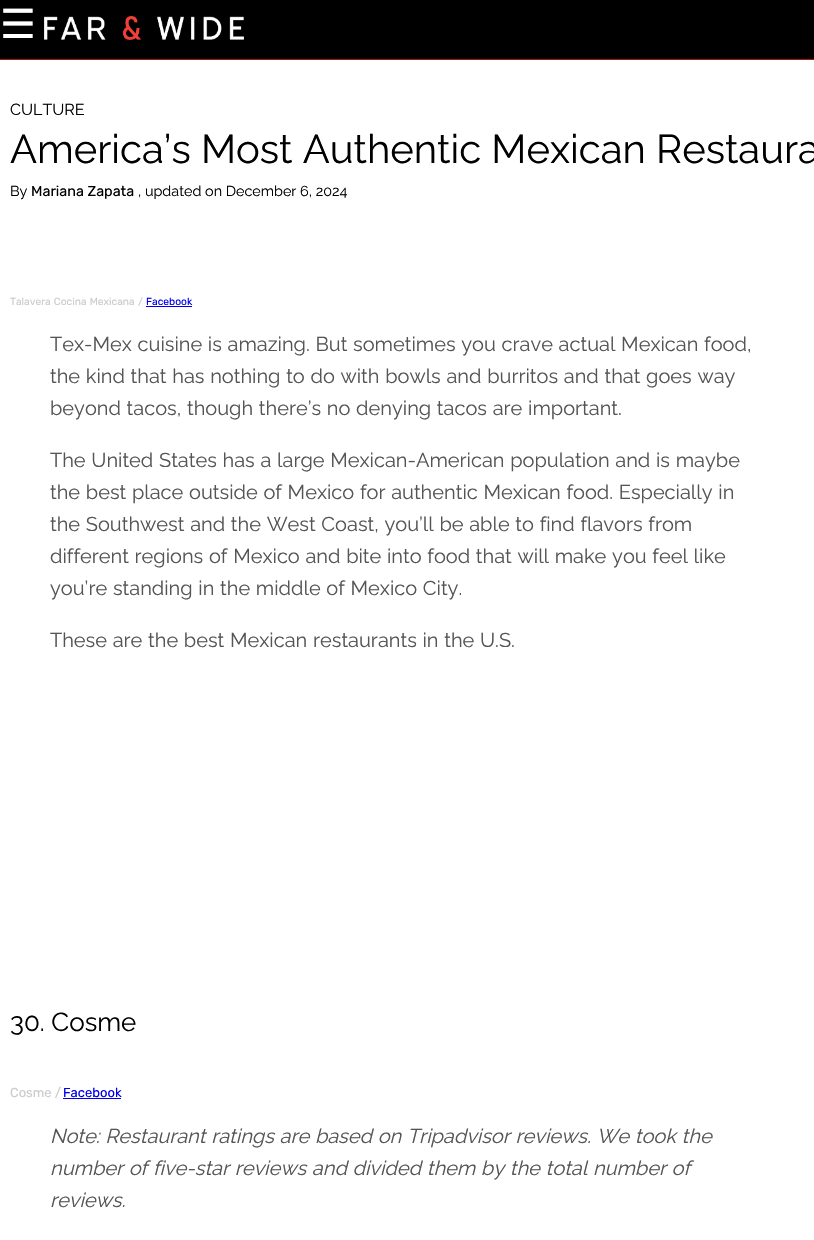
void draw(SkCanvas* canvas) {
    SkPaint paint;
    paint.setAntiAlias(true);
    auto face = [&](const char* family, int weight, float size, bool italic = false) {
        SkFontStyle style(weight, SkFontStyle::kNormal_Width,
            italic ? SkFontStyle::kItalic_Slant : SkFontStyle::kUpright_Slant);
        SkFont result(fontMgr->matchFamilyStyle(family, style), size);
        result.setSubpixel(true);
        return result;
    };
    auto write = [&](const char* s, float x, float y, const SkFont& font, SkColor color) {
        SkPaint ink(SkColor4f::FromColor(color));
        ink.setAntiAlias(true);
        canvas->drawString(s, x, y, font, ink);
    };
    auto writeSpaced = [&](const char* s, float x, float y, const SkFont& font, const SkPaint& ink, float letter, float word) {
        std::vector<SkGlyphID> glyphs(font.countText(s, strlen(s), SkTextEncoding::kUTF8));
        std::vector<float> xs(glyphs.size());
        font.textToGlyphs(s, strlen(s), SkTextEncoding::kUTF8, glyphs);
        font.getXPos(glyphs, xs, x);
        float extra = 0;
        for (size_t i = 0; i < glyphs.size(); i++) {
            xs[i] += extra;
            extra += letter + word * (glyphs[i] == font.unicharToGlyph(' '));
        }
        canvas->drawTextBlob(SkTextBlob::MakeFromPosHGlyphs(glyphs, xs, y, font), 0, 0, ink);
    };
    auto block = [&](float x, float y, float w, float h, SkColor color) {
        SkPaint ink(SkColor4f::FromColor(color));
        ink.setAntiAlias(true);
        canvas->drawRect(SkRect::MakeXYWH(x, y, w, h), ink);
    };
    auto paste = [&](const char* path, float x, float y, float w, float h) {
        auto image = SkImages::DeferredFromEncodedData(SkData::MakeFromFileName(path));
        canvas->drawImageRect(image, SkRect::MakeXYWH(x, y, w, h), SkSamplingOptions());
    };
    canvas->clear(SK_ColorWHITE);
    block(0, 0, 814, 59, SK_ColorBLACK);
    block(0, 59, 814, 1, SkColorSetRGB(173, 21, 12));
    auto kFont1 = face("DejaVu Sans", 400, 40);
    write("☰", 0, 38, kFont1, SK_ColorWHITE);
    paste("pic1.png", 44, 16, 200, 24);
    auto kFont2 = face("Raleway", 400, 16);
    write("CULTURE", 10, 115, kFont2, SK_ColorBLACK);
    auto kFont3 = face("Raleway", 400, 40);
    write("America’s Most Authentic Mexican Restaura", 10, 163, kFont3, SK_ColorBLACK);
    auto kFont4 = face("Raleway", 400, 14.4f);
    write("By", 10, 196, kFont4, SK_ColorBLACK);
    auto kFont5 = face("Rubik", 400, 14.4f);
    write("Mariana Zapata", 31, 196, kFont5, SK_ColorBLACK);
    write(", updated on December 6, 2024", 138, 196, kFont4, SK_ColorBLACK);
    auto kFont6 = face("Rubik", 400, 10.25f);
    paint.setColor(SkColorSetRGB(204, 204, 204));
    writeSpaced("Talavera Cocina Mexicana", 10, 305, kFont6, paint, 0, 0.6f);
    write("/", 138, 305, kFont6, SkColorSetRGB(204, 204, 204));
    write("Facebook", 146, 305, kFont6, SkColorSetRGB(0, 0, 238));
    block(146, 306, 46, 1, SkColorSetRGB(0, 0, 238));
    auto kFont7 = face("Raleway", 400, 20);
    paint.setColor(SkColorSetRGB(85, 85, 85));
    writeSpaced("Tex-Mex cuisine is amazing. But sometimes you crave actual Mexican food,", 50, 351, kFont7, paint, 0, 0.6f);
    writeSpaced("the kind that has nothing to do with bowls and burritos and that goes way", 50, 383, kFont7, paint, 0, 0.6f);
    writeSpaced("beyond tacos, though there’s no denying tacos are important.", 50, 415, kFont7, paint, 0, 0.6f);
    writeSpaced("The United States has a large Mexican-American population and is maybe", 50, 467, kFont7, paint, 0, 0.6f);
    writeSpaced("the best place outside of Mexico for authentic Mexican food. Especially in", 50, 499, kFont7, paint, 0, 0.6f);
    writeSpaced("the Southwest and the West Coast, you’ll be able to find flavors from", 50, 531, kFont7, paint, 0, 0.6f);
    writeSpaced("different regions of Mexico and bite into food that will make you feel like", 50, 563, kFont7, paint, 0, 0.6f);
    writeSpaced("you’re standing in the middle of Mexico City.", 50, 595, kFont7, paint, 0, 0.6f);
    writeSpaced("These are the best Mexican restaurants in the U.S.", 50, 647, kFont7, paint, 0, 0.6f);
    auto kFont8 = face("Raleway", 400, 26);
    write("30. Cosme", 10, 1031, kFont8, SK_ColorBLACK);
    auto kFont9 = face("Rubik", 400, 13);
    write("Cosme /", 10, 1097, kFont9, SkColorSetRGB(204, 204, 204));
    write("Facebook", 63, 1097, kFont9, SkColorSetRGB(0, 0, 238));
    block(63, 1098, 58, 1, SkColorSetRGB(0, 0, 238));
    auto kFont10 = face("Raleway", 400, 20, true);
    writeSpaced("Note: Restaurant ratings are based on Tripadvisor reviews. We took the", 50, 1143, kFont10, paint, 0, 0.6f);
    writeSpaced("number of five-star reviews and divided them by the total number of", 50, 1175, kFont10, paint, 0, 0.6f);
    write("reviews.", 50, 1207, kFont10, SkColorSetRGB(85, 85, 85));
}
